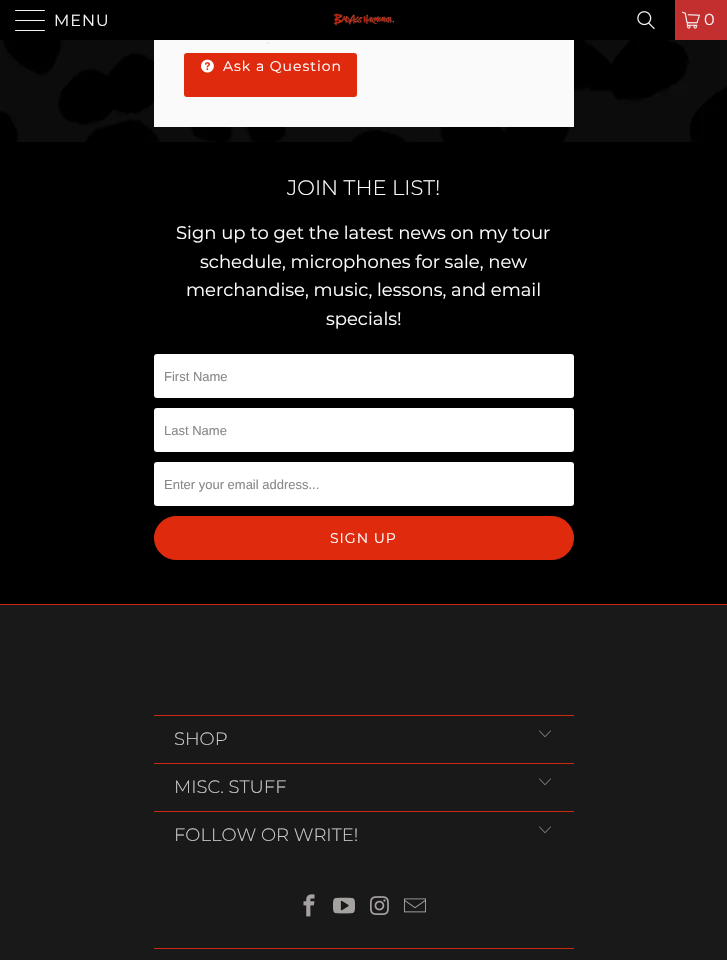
void draw(SkCanvas* canvas) {
    SkPaint paint;
    paint.setAntiAlias(true);
    auto face = [&](const char* family, int weight, float size, bool italic = false) {
        SkFontStyle style(weight, SkFontStyle::kNormal_Width,
            italic ? SkFontStyle::kItalic_Slant : SkFontStyle::kUpright_Slant);
        SkFont result(fontMgr->matchFamilyStyle(family, style), size);
        result.setSubpixel(true);
        return result;
    };
    auto write = [&](const char* s, float x, float y, const SkFont& font, SkColor color) {
        SkPaint ink(SkColor4f::FromColor(color));
        ink.setAntiAlias(true);
        canvas->drawString(s, x, y, font, ink);
    };
    auto writeSpaced = [&](const char* s, float x, float y, const SkFont& font, const SkPaint& ink, float letter, float word) {
        std::vector<SkGlyphID> glyphs(font.countText(s, strlen(s), SkTextEncoding::kUTF8));
        std::vector<float> xs(glyphs.size());
        font.textToGlyphs(s, strlen(s), SkTextEncoding::kUTF8, glyphs);
        font.getXPos(glyphs, xs, x);
        float extra = 0;
        for (size_t i = 0; i < glyphs.size(); i++) {
            xs[i] += extra;
            extra += letter + word * (glyphs[i] == font.unicharToGlyph(' '));
        }
        canvas->drawTextBlob(SkTextBlob::MakeFromPosHGlyphs(glyphs, xs, y, font), 0, 0, ink);
    };
    auto block = [&](float x, float y, float w, float h, SkColor color) {
        SkPaint ink(SkColor4f::FromColor(color));
        ink.setAntiAlias(true);
        canvas->drawRect(SkRect::MakeXYWH(x, y, w, h), ink);
    };
    auto card = [&](float x, float y, float w, float h, float radius, SkColor color) {
        SkPaint ink(SkColor4f::FromColor(color));
        ink.setAntiAlias(true);
        canvas->drawRoundRect(SkRect::MakeXYWH(x, y, w, h), radius, radius, ink);
    };
    auto paste = [&](const char* path, float x, float y, float w, float h) {
        auto image = SkImages::DeferredFromEncodedData(SkData::MakeFromFileName(path));
        canvas->drawImageRect(image, SkRect::MakeXYWH(x, y, w, h), SkSamplingOptions());
    };
    canvas->clear(SK_ColorWHITE);
    paste("pic1.png", 0, 40, 727, 102);
    block(0, 0, 675, 40, SK_ColorBLACK);
    card(15, 10, 30, 1, 0.5f, SkColorSetRGB(244, 244, 244));
    card(15, 20, 30, 1, 0.5f, SkColorSetRGB(244, 244, 244));
    card(15, 30, 30, 1, 0.5f, SkColorSetRGB(244, 244, 244));
    auto kFont1 = face("Montserrat", 400, 16);
    paint.setColor(SkColorSetRGB(244, 244, 244));
    writeSpaced("MENU", 54, 26, kFont1, paint, 1, 0);
    paste("pic2.png", 333, 13, 61, 13);
    paste("pic3.png", 637, 11, 18, 19);
    block(675, 0, 52, 40, SkColorSetRGB(195, 46, 46));
    paste("pic4.png", 682, 11, 18, 18);
    writeSpaced("0", 704, 25, kFont1, paint, 2, 0);
    block(154, 40, 420, 87, SkColorSetRGB(250, 250, 250));
    write(".", 266, 44, kFont1, SkColorSetRGB(234, 229, 229));
    card(184, 53, 173, 44, 3, SkColorSetRGB(223, 42, 13));
    paste("pic5.png", 201, 59, 13, 14);
    auto kFont2 = face("Montserrat", 400, 14);
    paint.setColor(SK_ColorWHITE);
    writeSpaced("Ask a Question", 223, 71, kFont2, paint, 1, 0);
    block(0, 142, 727, 462, SK_ColorBLACK);
    auto kFont3 = face("Montserrat", 300, 21);
    write("JOIN THE LIST!", 287, 195, kFont3, SK_ColorWHITE);
    auto kFont4 = face("Montserrat", 400, 18);
    write("Sign up to get the latest news on my tour", 176, 239, kFont4, SK_ColorWHITE);
    write("schedule, microphones for sale, new", 200, 268, kFont4, SK_ColorWHITE);
    write("merchandise, music, lessons, and email", 186, 296, kFont4, SK_ColorWHITE);
    write("specials!", 326, 325, kFont4, SK_ColorWHITE);
    card(154, 354, 420, 44, 3, SK_ColorWHITE);
    auto kFont5 = face("Liberation Sans", 400, 13);
    write("First Name", 164, 381, kFont5, SkColorSetRGB(136, 136, 136));
    card(154, 408, 420, 44, 3, SK_ColorWHITE);
    write("Last Name", 164, 435, kFont5, SkColorSetRGB(136, 136, 136));
    card(154, 462, 420, 44, 3, SK_ColorWHITE);
    write("Enter your email address...", 164, 489, kFont5, SkColorSetRGB(136, 136, 136));
    paint.setColor(SkColorSetRGB(223, 42, 13));
    canvas->drawRoundRect(SkRect::MakeXYWH(154.5f, 516.5f, 419, 43), 21.5f, 21.5f, paint);
    paint.setStyle(SkPaint::kStroke_Style);
    paint.setStrokeWidth(1);
    canvas->drawRoundRect(SkRect::MakeXYWH(154.5f, 516.5f, 419, 43), 21.5f, 21.5f, paint);
    paint.setStyle(SkPaint::kFill_Style);
    paint.setColor(SK_ColorWHITE);
    writeSpaced("SIGN UP", 330, 543, kFont2, paint, 1, 0);
    block(0, 605, 727, 355, SkColorSetRGB(25, 25, 25));
    block(0, 604, 727, 1, SkColorSetRGB(201, 41, 15));
    block(154, 715, 420, 1, SkColorSetRGB(201, 41, 15));
    auto kFont6 = face("Montserrat", 300, 18);
    write("SHOP", 174, 745, kFont6, SkColorSetRGB(204, 206, 206));
    paste("pic6.png", 539, 730, 12, 7);
    block(154, 763, 420, 1, SkColorSetRGB(201, 41, 15));
    write("MISC. STUFF", 174, 793, kFont6, SkColorSetRGB(204, 206, 206));
    paste("pic6.png", 539, 778, 12, 7);
    block(154, 811, 420, 1, SkColorSetRGB(201, 41, 15));
    write("FOLLOW OR WRITE!", 174, 841, kFont6, SkColorSetRGB(204, 206, 206));
    paste("pic6.png", 539, 826, 12, 7);
    paste("pic7.png", 303, 894, 12, 23);
    paste("pic8.png", 333, 897, 22, 17);
    paste("pic9.png", 370, 896, 19, 19);
    paste("pic10.png", 404, 898, 22, 15);
    block(154, 948, 420, 1, SkColorSetRGB(201, 41, 15));
}
